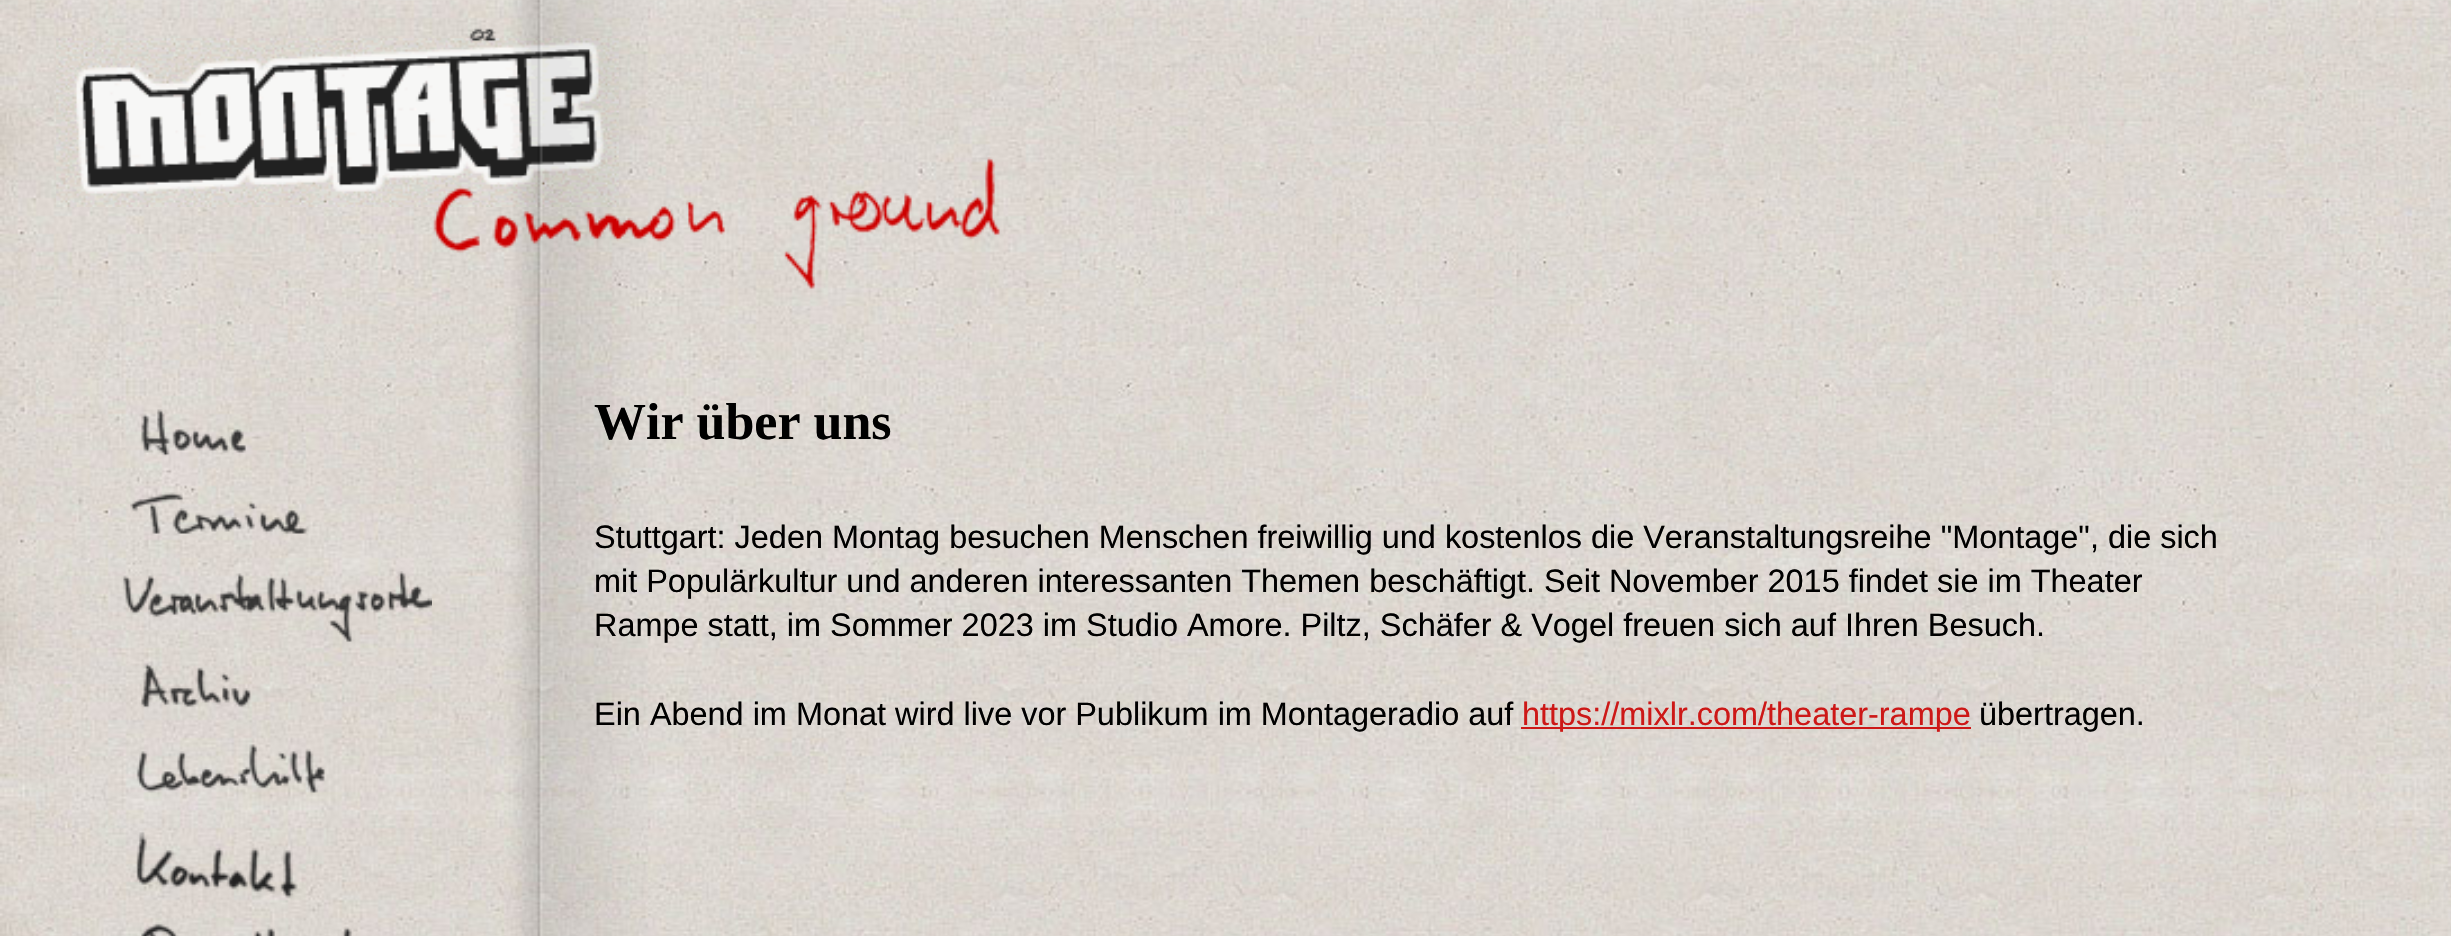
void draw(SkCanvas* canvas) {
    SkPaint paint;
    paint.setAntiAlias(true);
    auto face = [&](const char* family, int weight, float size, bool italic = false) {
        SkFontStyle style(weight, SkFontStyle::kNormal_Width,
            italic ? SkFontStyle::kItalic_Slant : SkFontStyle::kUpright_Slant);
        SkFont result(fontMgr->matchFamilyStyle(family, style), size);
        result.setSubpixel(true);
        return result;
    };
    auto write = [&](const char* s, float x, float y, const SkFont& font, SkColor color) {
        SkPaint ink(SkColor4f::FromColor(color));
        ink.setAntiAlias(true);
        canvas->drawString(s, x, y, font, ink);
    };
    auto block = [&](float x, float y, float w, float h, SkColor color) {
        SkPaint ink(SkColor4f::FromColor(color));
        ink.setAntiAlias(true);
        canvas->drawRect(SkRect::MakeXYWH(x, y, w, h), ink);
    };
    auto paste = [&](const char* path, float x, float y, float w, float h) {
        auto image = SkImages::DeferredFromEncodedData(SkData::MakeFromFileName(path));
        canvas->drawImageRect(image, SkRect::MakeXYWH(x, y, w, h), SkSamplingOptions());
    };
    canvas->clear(SK_ColorWHITE);
    paste("pic1.png", 0, 0, 2451, 936);
    paste("pic2.png", 56, 38, 563, 169);
    paste("pic3.png", 433, 28, 567, 261);
    paste("pic4.png", 141, 409, 105, 47);
    paste("pic5.png", 130, 492, 179, 42);
    paste("pic6.png", 123, 571, 309, 71);
    paste("pic7.png", 141, 663, 110, 45);
    paste("pic8.png", 136, 744, 189, 49);
    paste("pic9.png", 136, 832, 162, 67);
    paste("pic10.png", 141, 922, 211, 14);
    auto kFont1 = face("Liberation Serif", 700, 52);
    write("Wir über uns", 594, 439, kFont1, SK_ColorBLACK);
    auto kFont2 = face("Liberation Sans", 400, 32.43f);
    write("Stuttgart: Jeden Montag besuchen Menschen freiwillig und kostenlos die Veranstaltungsreihe \"Montage\", die sich", 594, 548, kFont2, SK_ColorBLACK);
    write("mit Populärkultur und anderen interessanten Themen beschäftigt. Seit November 2015 findet sie im Theater", 594, 592, kFont2, SK_ColorBLACK);
    write("Rampe statt, im Sommer 2023 im Studio Amore. Piltz, Schäfer & Vogel freuen sich auf Ihren Besuch.", 594, 636, kFont2, SK_ColorBLACK);
    write("Ein Abend im Monat wird live vor Publikum im Montageradio auf", 594, 725, kFont2, SK_ColorBLACK);
    block(1521, 727, 450, 2, SkColorSetRGB(205, 24, 23));
    write("https://mixlr.com/theater-rampe", 1522, 725, kFont2, SkColorSetRGB(205, 24, 23));
    write("übertragen.", 1979, 725, kFont2, SK_ColorBLACK);
}
